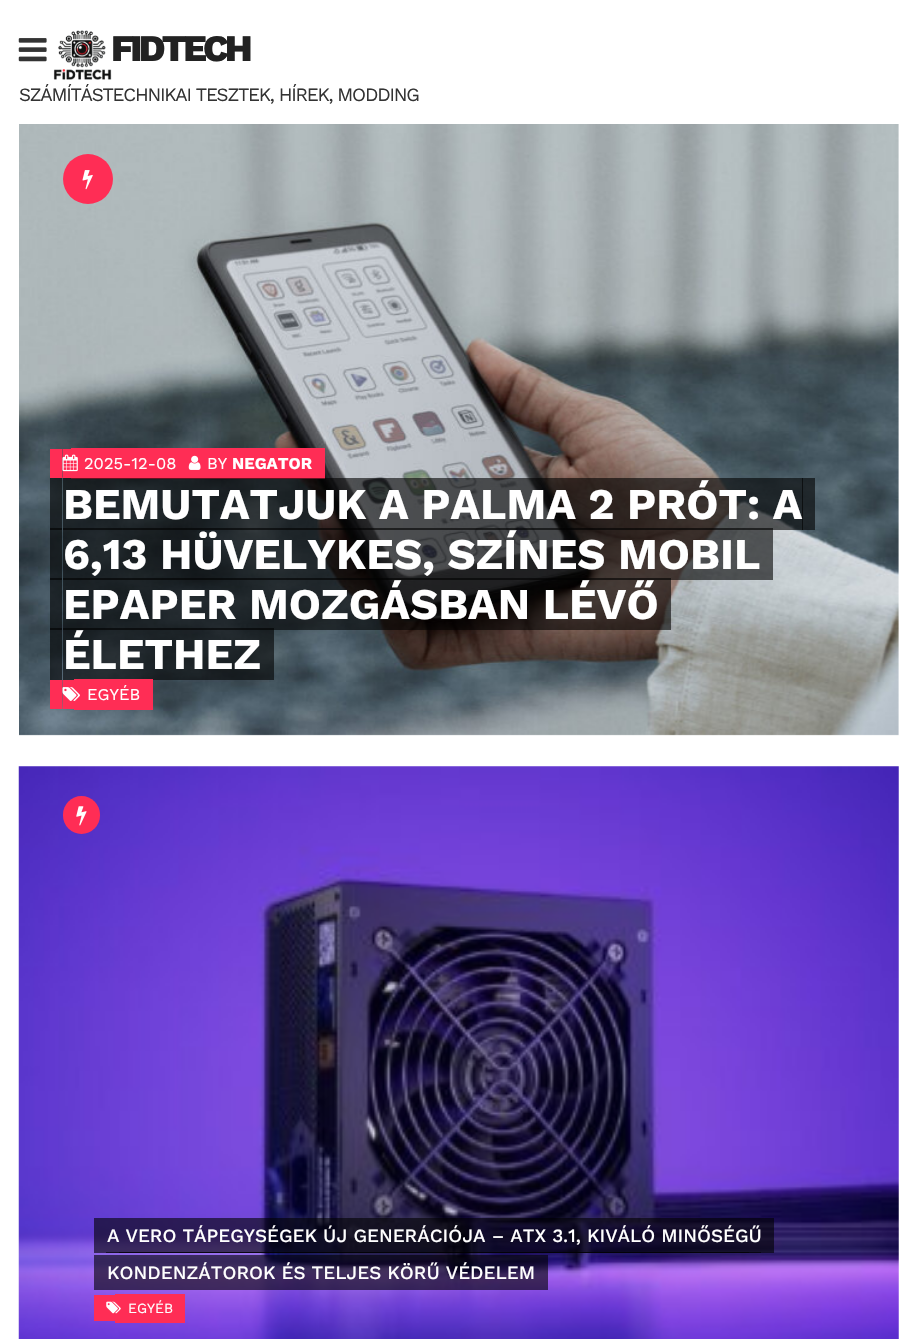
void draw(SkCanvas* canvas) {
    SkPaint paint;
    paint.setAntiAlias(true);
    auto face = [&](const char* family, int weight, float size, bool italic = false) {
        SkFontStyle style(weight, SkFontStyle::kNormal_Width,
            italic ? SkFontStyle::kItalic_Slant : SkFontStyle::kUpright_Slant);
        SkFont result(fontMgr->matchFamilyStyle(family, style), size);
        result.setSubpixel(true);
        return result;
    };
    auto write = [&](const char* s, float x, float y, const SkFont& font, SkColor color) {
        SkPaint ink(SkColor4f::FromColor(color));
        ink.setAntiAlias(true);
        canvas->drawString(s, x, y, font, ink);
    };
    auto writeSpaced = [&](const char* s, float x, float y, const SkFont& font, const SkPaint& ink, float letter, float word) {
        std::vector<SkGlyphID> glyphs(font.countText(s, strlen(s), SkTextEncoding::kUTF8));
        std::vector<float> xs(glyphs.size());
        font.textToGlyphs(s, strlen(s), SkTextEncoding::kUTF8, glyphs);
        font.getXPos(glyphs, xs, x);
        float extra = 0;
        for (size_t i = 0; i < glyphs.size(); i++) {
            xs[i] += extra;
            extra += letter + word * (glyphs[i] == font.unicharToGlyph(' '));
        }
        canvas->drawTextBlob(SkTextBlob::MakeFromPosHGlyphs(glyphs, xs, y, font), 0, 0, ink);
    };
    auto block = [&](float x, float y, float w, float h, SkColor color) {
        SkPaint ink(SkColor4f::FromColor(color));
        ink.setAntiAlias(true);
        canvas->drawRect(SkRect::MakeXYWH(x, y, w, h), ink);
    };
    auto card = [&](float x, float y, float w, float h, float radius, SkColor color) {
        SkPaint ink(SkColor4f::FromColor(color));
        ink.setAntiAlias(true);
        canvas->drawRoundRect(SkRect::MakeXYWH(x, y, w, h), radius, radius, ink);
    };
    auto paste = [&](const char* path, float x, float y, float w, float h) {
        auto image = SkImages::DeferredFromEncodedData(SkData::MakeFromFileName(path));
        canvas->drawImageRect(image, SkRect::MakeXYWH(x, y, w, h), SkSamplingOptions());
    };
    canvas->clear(SK_ColorWHITE);
    paste("pic1.png", 18, 38, 29, 24);
    paste("pic2.png", 53, 30, 59, 50);
    auto kFont1 = face("Work Sans", 800, 37.5f);
    paint.setColor(SkColorSetRGB(34, 34, 34));
    writeSpaced("FIDTECH", 111, 61, kFont1, paint, -3.75f, 0);
    auto kFont2 = face("Work Sans", 400, 18.75f);
    paint.setColor(SkColorSetRGB(51, 51, 51));
    writeSpaced("SZÁMÍTÁSTECHNIKAI TESZTEK, HÍREK, MODDING", 19, 101, kFont2, paint, -1.25f, 0);
    paste("pic3.png", 19, 124, 880, 612);
    paint.setColor(SkColorSetRGB(255, 45, 85));
    canvas->drawCircle(88, 179, 25, paint);
    paste("pic4.png", 82, 170, 11, 20);
    canvas->drawPath(SkPathBuilder().moveTo(50, 449).lineTo(50, 478).lineTo(65, 478).lineTo(65, 477.5f).lineTo(62.5f, 477.5f).lineTo(62.5f, 449).close().detach(), paint);
    block(63, 449, 8, 29, SkColorSetRGB(255, 45, 85));
    canvas->drawPath(SkPathBuilder().moveTo(71, 448).lineTo(71, 479).lineTo(164, 479).lineTo(84, 479).lineTo(84, 448).close().detach(), paint);
    canvas->drawPath(SkPathBuilder().moveTo(96, 479).lineTo(189, 479).lineTo(189, 448).lineTo(176, 448).lineTo(176, 479).close().detach(), paint);
    block(84, 448, 92, 31, SkColorSetRGB(255, 45, 85));
    canvas->drawPath(SkPathBuilder().moveTo(189, 448).lineTo(189, 479).lineTo(220, 479).lineTo(201, 479).lineTo(201, 448).close().detach(), paint);
    block(201, 448, 111, 31, SkColorSetRGB(255, 45, 85));
    canvas->drawPath(SkPathBuilder().moveTo(245, 479).lineTo(325, 479).lineTo(325, 448).lineTo(312, 448).lineTo(312, 479).close().detach(), paint);
    paste("pic5.png", 62, 454, 16, 18);
    auto kFont3 = face("Work Sans", 400, 16.5f);
    write("2025-12-08", 84, 469, kFont3, SK_ColorWHITE);
    paste("pic6.png", 188, 455, 13, 15);
    write("BY", 207, 469, kFont3, SK_ColorWHITE);
    auto kFont4 = face("Work Sans", 700, 16.5f);
    write("NEGATOR", 232, 469, kFont4, SK_ColorWHITE);
    block(802, 478, 13, 52, SkColorSetARGB(153, 0, 0, 0));
    block(63, 478, 740, 52, SkColorSetARGB(153, 0, 0, 0));
    auto kFont5 = face("Work Sans", 700, 43.75f);
    write("BEMUTATJUK A PALMA 2 PRÓT: A", 63, 519, kFont5, SK_ColorWHITE);
    block(50, 478, 12, 52, SkColorSetARGB(153, 0, 0, 0));
    block(63, 528, 697, 52, SkColorSetARGB(153, 0, 0, 0));
    write("6,13 HÜVELYKES, SZÍNES MOBIL", 63, 569, kFont5, SK_ColorWHITE);
    block(50, 528, 12, 52, SkColorSetARGB(153, 0, 0, 0));
    block(760, 528, 13, 52, SkColorSetARGB(153, 0, 0, 0));
    block(63, 578, 596, 52, SkColorSetARGB(153, 0, 0, 0));
    write("EPAPER MOZGÁSBAN LÉVŐ", 63, 619, kFont5, SK_ColorWHITE);
    block(50, 578, 12, 52, SkColorSetARGB(153, 0, 0, 0));
    block(659, 578, 12, 52, SkColorSetARGB(153, 0, 0, 0));
    block(63, 628, 198, 52, SkColorSetARGB(153, 0, 0, 0));
    write("ÉLETHEZ", 63, 669, kFont5, SK_ColorWHITE);
    block(50, 628, 12, 52, SkColorSetARGB(153, 0, 0, 0));
    block(261, 628, 13, 52, SkColorSetARGB(153, 0, 0, 0));
    canvas->drawPath(SkPathBuilder().moveTo(50, 680).lineTo(50, 709).lineTo(68, 709).lineTo(62.5f, 709).lineTo(62.5f, 680).close().detach(), paint);
    block(63, 680, 11, 29, SkColorSetRGB(255, 45, 85));
    block(74, 679, 12, 31, SkColorSetRGB(255, 45, 85));
    block(86, 679, 67, 31, SkColorSetRGB(255, 45, 85));
    paste("pic7.png", 62, 687, 18, 14);
    write("EGYÉB", 87, 700, kFont3, SK_ColorWHITE);
    paste("pic8.png", 18, 766, 881, 573);
    card(63, 796, 37, 38, 18.5f, SkColorSetRGB(255, 45, 85));
    paste("pic9.png", 76, 806, 11, 20);
    paint.setColor(SkColorSetARGB(153, 0, 0, 0));
    canvas->drawPath(SkPathBuilder().moveTo(94, 1218).lineTo(94, 1253).lineTo(749, 1253).lineTo(749, 1252).lineTo(106, 1252).lineTo(106, 1218).close().detach(), paint);
    canvas->drawPath(SkPathBuilder().moveTo(119, 1252).lineTo(119, 1253).lineTo(774, 1253).lineTo(774, 1218).lineTo(761, 1218).lineTo(761, 1252).close().detach(), paint);
    block(106, 1218, 655, 35, SkColorSetARGB(153, 0, 0, 0));
    auto kFont6 = face("Work Sans", 500, 18.75f);
    write("A VERO TÁPEGYSÉGEK ÚJ GENERÁCIÓJA – ATX 3.1, KIVÁLÓ MINŐSÉGŰ", 107, 1242, kFont6, SK_ColorWHITE);
    block(106, 1255, 429, 35, SkColorSetARGB(153, 0, 0, 0));
    write("KONDENZÁTOROK ÉS TELJES KÖRŰ VÉDELEM", 107, 1279, kFont6, SK_ColorWHITE);
    block(94, 1255, 12, 35, SkColorSetARGB(153, 0, 0, 0));
    block(535, 1255, 13, 35, SkColorSetARGB(153, 0, 0, 0));
    block(94, 1295, 21, 26, SkColorSetRGB(255, 45, 85));
    paint.setColor(SkColorSetRGB(255, 45, 85));
    canvas->drawPath(SkPathBuilder().moveTo(115, 1294).lineTo(115, 1323).lineTo(160, 1323).lineTo(160, 1322).lineTo(128, 1322).lineTo(128, 1294).close().detach(), paint);
    canvas->drawPath(SkPathBuilder().moveTo(140, 1322).lineTo(140, 1323).lineTo(185, 1323).lineTo(185, 1294).lineTo(172, 1294).lineTo(172, 1322).close().detach(), paint);
    block(128, 1294, 44, 28, SkColorSetRGB(255, 45, 85));
    paste("pic10.png", 106, 1301, 15, 13);
    auto kFont7 = face("Work Sans", 400, 14);
    write("EGYÉB", 128, 1313, kFont7, SK_ColorWHITE);
}
